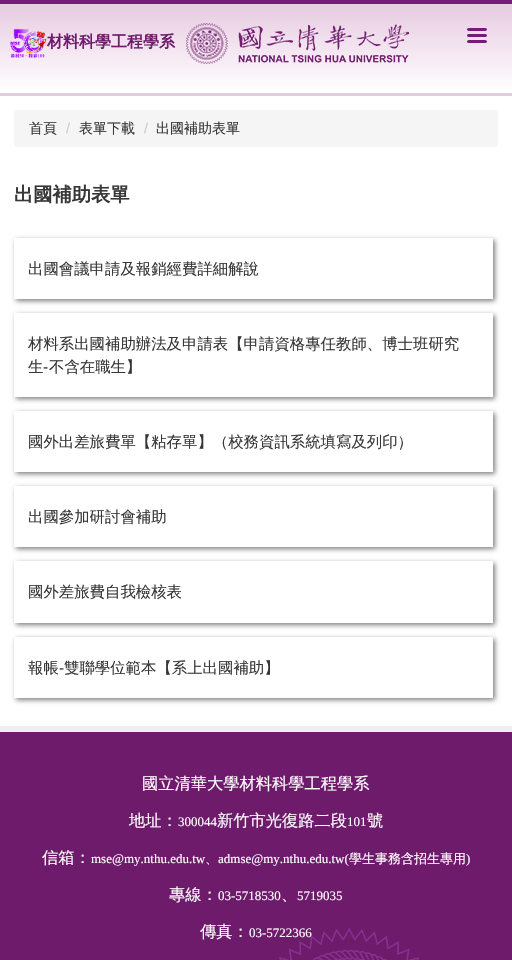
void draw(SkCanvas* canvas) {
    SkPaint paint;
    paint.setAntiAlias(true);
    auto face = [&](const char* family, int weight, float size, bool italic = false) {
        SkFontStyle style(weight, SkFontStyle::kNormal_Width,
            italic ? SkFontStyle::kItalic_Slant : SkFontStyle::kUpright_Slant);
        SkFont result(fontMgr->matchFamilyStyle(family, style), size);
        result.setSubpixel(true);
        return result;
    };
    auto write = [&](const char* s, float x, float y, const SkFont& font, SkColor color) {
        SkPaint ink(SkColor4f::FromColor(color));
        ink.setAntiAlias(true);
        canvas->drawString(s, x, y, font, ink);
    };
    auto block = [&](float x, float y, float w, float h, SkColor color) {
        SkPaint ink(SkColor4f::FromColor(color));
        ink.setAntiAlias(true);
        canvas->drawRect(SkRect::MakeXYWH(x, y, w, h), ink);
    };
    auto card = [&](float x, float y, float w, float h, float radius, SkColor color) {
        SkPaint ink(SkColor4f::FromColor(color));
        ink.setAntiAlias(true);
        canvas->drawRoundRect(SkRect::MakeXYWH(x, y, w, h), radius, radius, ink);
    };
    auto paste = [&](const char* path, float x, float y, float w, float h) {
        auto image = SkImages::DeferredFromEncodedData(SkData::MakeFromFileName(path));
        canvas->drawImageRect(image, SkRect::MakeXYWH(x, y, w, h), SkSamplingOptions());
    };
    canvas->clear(SK_ColorWHITE);
    block(0, 0, 512, 4, SkColorSetRGB(118, 27, 123));
    {
        const SkColor colors[] = {SkColorSetRGB(231, 203, 225), SK_ColorWHITE};
        const float stops[] = {0, 1};
        const SkPoint ends[] = {{256, 4}, {256, 93}};
        paint.setShader(SkGradientShader::MakeLinear(ends, colors, stops, 2, SkTileMode::kClamp));
        paint.setAlpha(255);
    }
    canvas->drawRect(SkRect::MakeXYWH(0, 4, 512, 85), paint);
    block(0, 93, 512, 3, SkColorSetRGB(228, 204, 223));
    paste("pic1.png", 10, 28, 37, 30);
    auto kFont1 = face("WenQuanYi Zen Hei", 700, 16);
    write("材料科學工程學系", 47, 47, kFont1, SkColorSetRGB(111, 27, 108));
    paste("pic2.png", 186, 23, 223, 41);
    paste("pic3.png", 467, 28, 20, 15);
    card(14, 110, 484, 37, 4, SkColorSetRGB(245, 245, 245));
    auto kFont2 = face("WenQuanYi Zen Hei", 500, 14);
    write("首頁", 29, 133, kFont2, SkColorSetRGB(55, 55, 55));
    auto kFont3 = face("Liberation Sans", 400, 14);
    write("/", 66, 133, kFont3, SkColorSetRGB(204, 204, 204));
    write("表單下載", 79, 133, kFont2, SkColorSetRGB(55, 55, 55));
    write("/", 144, 133, kFont3, SkColorSetRGB(204, 204, 204));
    write("出國補助表單", 156, 133, kFont2, SkColorSetRGB(55, 55, 55));
    auto kFont4 = face("WenQuanYi Zen Hei", 700, 19.25f);
    write("出國補助表單", 14, 201, kFont4, SkColorSetRGB(55, 55, 55));
    canvas->save();
    canvas->clipPath(SkPathBuilder(SkPathFillType::kEvenOdd).moveTo(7, 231).lineTo(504, 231).lineTo(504, 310).lineTo(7, 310).close().moveTo(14, 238).lineTo(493, 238).lineTo(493, 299).lineTo(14, 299).close().detach(), true);
    paint.setShader(nullptr);
    paint.setColor(SkColorSetARGB(128, 0, 0, 0));
    paint.setMaskFilter(SkMaskFilter::MakeBlur(kNormal_SkBlurStyle, 2.5f));
    canvas->drawRect(SkRect::MakeXYWH(16, 240, 479, 61), paint);
    paint.setMaskFilter(nullptr);
    canvas->restore();
    auto kFont5 = face("WenQuanYi Zen Hei", 500, 15.4f);
    write("出國會議申請及報銷經費詳細解說", 28, 274, kFont5, SkColorSetRGB(55, 55, 55));
    canvas->save();
    canvas->clipPath(SkPathBuilder(SkPathFillType::kEvenOdd).moveTo(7, 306).lineTo(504, 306).lineTo(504, 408).lineTo(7, 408).close().moveTo(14, 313).lineTo(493, 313).lineTo(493, 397).lineTo(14, 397).close().detach(), true);
    paint.setMaskFilter(SkMaskFilter::MakeBlur(kNormal_SkBlurStyle, 2.5f));
    canvas->drawRect(SkRect::MakeXYWH(16, 315, 479, 84), paint);
    paint.setMaskFilter(nullptr);
    canvas->restore();
    write("材料系出國補助辦法及申請表【申請資格專任教師、博士班研究", 28, 349, kFont5, SkColorSetRGB(55, 55, 55));
    write("生", 28, 372, kFont5, SkColorSetRGB(55, 55, 55));
    auto kFont6 = face("Liberation Sans", 400, 15.4f);
    write("-", 43, 372, kFont6, SkColorSetRGB(55, 55, 55));
    write("不含在職生】", 49, 372, kFont5, SkColorSetRGB(55, 55, 55));
    canvas->save();
    canvas->clipPath(SkPathBuilder(SkPathFillType::kEvenOdd).moveTo(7, 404).lineTo(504, 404).lineTo(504, 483).lineTo(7, 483).close().moveTo(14, 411).lineTo(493, 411).lineTo(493, 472).lineTo(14, 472).close().detach(), true);
    paint.setMaskFilter(SkMaskFilter::MakeBlur(kNormal_SkBlurStyle, 2.5f));
    canvas->drawRect(SkRect::MakeXYWH(16, 413, 479, 61), paint);
    paint.setMaskFilter(nullptr);
    canvas->restore();
    write("國外出差旅費單【粘存單】（校務資訊系統填寫及列印）", 28, 447, kFont5, SkColorSetRGB(55, 55, 55));
    canvas->save();
    canvas->clipPath(SkPathBuilder(SkPathFillType::kEvenOdd).moveTo(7, 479).lineTo(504, 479).lineTo(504, 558).lineTo(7, 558).close().moveTo(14, 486).lineTo(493, 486).lineTo(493, 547).lineTo(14, 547).close().detach(), true);
    paint.setMaskFilter(SkMaskFilter::MakeBlur(kNormal_SkBlurStyle, 2.5f));
    canvas->drawRect(SkRect::MakeXYWH(16, 488, 479, 61), paint);
    paint.setMaskFilter(nullptr);
    canvas->restore();
    write("出國參加研討會補助", 28, 522, kFont5, SkColorSetRGB(55, 55, 55));
    canvas->save();
    canvas->clipPath(SkPathBuilder(SkPathFillType::kEvenOdd).moveTo(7, 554).lineTo(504, 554).lineTo(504, 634).lineTo(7, 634).close().moveTo(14, 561).lineTo(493, 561).lineTo(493, 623).lineTo(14, 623).close().detach(), true);
    paint.setMaskFilter(SkMaskFilter::MakeBlur(kNormal_SkBlurStyle, 2.5f));
    canvas->drawRect(SkRect::MakeXYWH(16, 563, 479, 62), paint);
    paint.setMaskFilter(nullptr);
    canvas->restore();
    write("國外差旅費自我檢核表", 28, 597, kFont5, SkColorSetRGB(55, 55, 55));
    canvas->save();
    canvas->clipPath(SkPathBuilder(SkPathFillType::kEvenOdd).moveTo(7, 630).lineTo(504, 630).lineTo(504, 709).lineTo(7, 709).close().moveTo(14, 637).lineTo(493, 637).lineTo(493, 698).lineTo(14, 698).close().detach(), true);
    paint.setMaskFilter(SkMaskFilter::MakeBlur(kNormal_SkBlurStyle, 2.5f));
    canvas->drawRect(SkRect::MakeXYWH(16, 639, 479, 61), paint);
    paint.setMaskFilter(nullptr);
    canvas->restore();
    write("報帳", 28, 673, kFont5, SkColorSetRGB(55, 55, 55));
    write("-", 59, 673, kFont6, SkColorSetRGB(55, 55, 55));
    write("雙聯學位範本【系上出國補助】", 64, 673, kFont5, SkColorSetRGB(55, 55, 55));
    block(0, 732, 512, 228, SkColorSetRGB(111, 27, 108));
    block(0, 726, 512, 6, SkColorSetRGB(239, 239, 239));
    paste("pic4.png", 279, 928, 140, 32);
    auto kFont7 = face("WenQuanYi Zen Hei", 500, 16.25f);
    write("國立清華大學材料科學工程學系", 142, 789, kFont7, SK_ColorWHITE);
    write("地址：", 129, 826, kFont7, SK_ColorWHITE);
    auto kFont8 = face("Liberation Serif", 400, 13);
    write("300044", 178, 826, kFont8, SK_ColorWHITE);
    write("新竹市光復路二段", 217, 826, kFont7, SK_ColorWHITE);
    write("101", 347, 826, kFont8, SK_ColorWHITE);
    write("號", 367, 826, kFont7, SK_ColorWHITE);
    write("信箱：", 42, 863, kFont7, SK_ColorWHITE);
    write("mse@my.nthu.edu.tw", 91, 863, kFont8, SK_ColorWHITE);
    auto kFont9 = face("WenQuanYi Zen Hei", 500, 13);
    write("、", 205, 863, kFont9, SK_ColorWHITE);
    write("admse@my.nthu.edu.tw(", 218, 863, kFont8, SK_ColorWHITE);
    write("學生事務含招生專用", 349, 863, kFont9, SK_ColorWHITE);
    write(")", 466, 863, kFont8, SK_ColorWHITE);
    write("專線：", 169, 900, kFont7, SK_ColorWHITE);
    write("03-5718530", 218, 900, kFont8, SK_ColorWHITE);
    write("、", 281, 900, kFont7, SK_ColorWHITE);
    write("5719035", 297, 900, kFont8, SK_ColorWHITE);
    write("傳真：", 200, 937, kFont7, SK_ColorWHITE);
    write("03-5722366", 249, 937, kFont8, SK_ColorWHITE);
}
